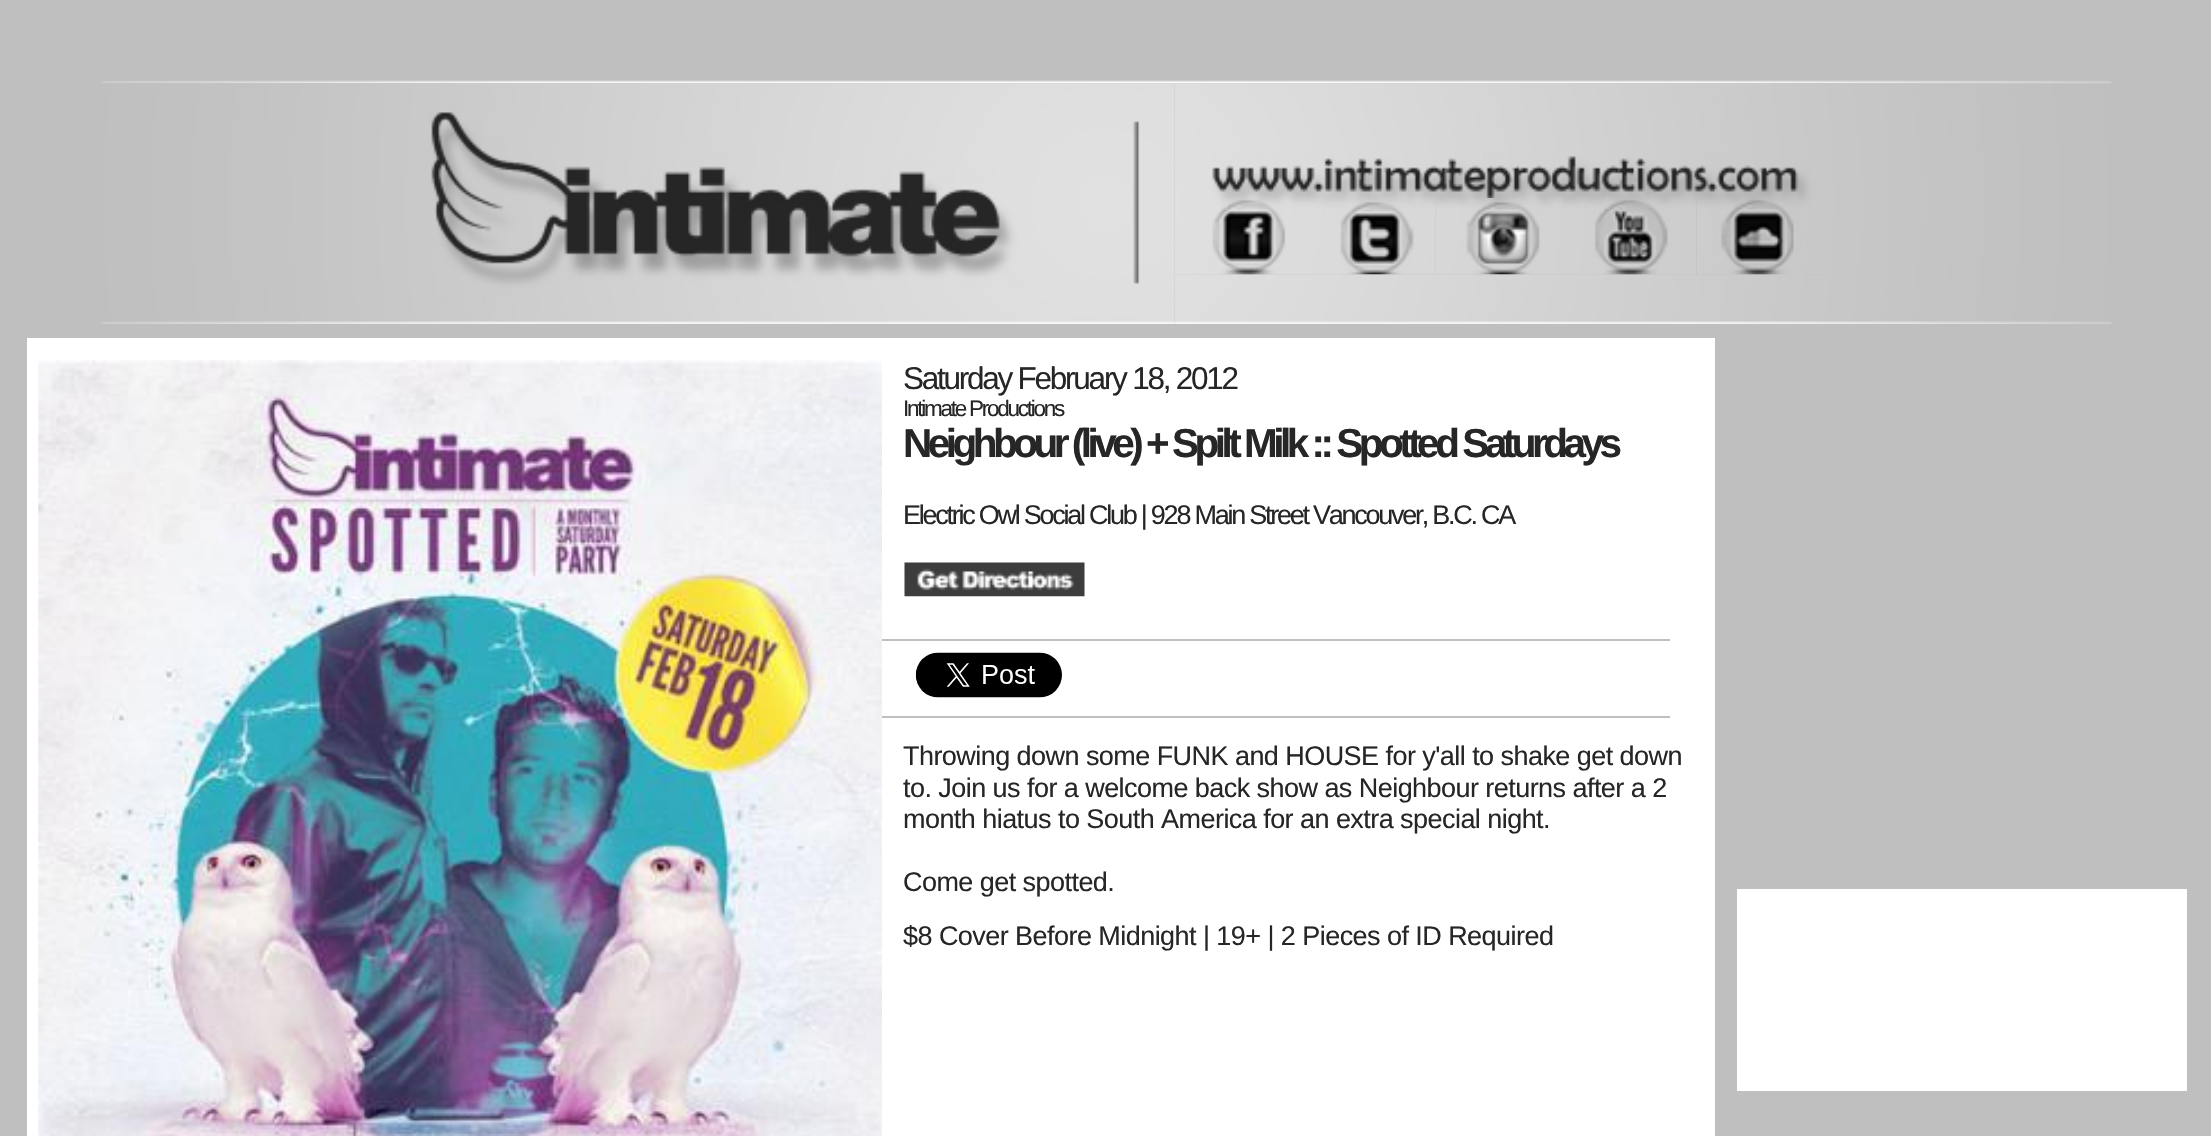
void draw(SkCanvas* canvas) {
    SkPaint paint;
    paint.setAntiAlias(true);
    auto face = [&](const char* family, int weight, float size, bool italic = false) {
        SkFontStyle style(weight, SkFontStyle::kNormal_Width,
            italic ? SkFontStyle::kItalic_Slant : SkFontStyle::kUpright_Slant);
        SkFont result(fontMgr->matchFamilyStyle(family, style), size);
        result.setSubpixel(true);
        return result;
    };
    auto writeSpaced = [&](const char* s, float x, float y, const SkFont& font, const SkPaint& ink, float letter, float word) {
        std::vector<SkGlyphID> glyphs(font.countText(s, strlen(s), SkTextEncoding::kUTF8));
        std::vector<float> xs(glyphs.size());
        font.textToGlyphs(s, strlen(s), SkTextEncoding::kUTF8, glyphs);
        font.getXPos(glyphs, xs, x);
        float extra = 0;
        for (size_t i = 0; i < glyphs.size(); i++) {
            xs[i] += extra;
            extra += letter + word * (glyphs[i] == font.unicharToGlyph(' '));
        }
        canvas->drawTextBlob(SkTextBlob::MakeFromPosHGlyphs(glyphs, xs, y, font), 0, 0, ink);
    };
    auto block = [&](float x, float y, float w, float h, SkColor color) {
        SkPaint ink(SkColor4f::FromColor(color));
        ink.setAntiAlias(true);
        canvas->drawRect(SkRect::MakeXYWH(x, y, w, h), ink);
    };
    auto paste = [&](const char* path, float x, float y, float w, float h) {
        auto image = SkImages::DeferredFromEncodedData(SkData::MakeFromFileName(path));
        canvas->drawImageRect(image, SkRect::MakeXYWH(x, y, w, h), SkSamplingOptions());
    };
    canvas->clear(SkColorSetRGB(191, 191, 191));
    paste("pic1.png", 101, 80, 2011, 4);
    paste("pic2.png", 101, 83, 1074, 241);
    paste("pic3.png", 1174, 83, 653, 115);
    paste("pic4.png", 1827, 84, 285, 240);
    paste("pic5.png", 1174, 198, 131, 77);
    paste("pic6.png", 1305, 198, 131, 77);
    paste("pic7.png", 1435, 198, 131, 77);
    paste("pic8.png", 1566, 198, 131, 77);
    paste("pic9.png", 1697, 198, 130, 77);
    paste("pic10.png", 1174, 274, 653, 50);
    block(27, 338, 1688, 798, SK_ColorWHITE);
    paste("pic11.png", 38, 360, 844, 776);
    auto kFont1 = face("Liberation Sans", 400, 31.5f);
    paint.setColor(SkColorSetRGB(38, 38, 38));
    writeSpaced("Saturday February 18, 2012", 903, 389, kFont1, paint, -2.25f, 0);
    auto kFont2 = face("Liberation Sans", 400, 22.5f);
    writeSpaced("Intimate Productions", 903, 416, kFont2, paint, -2.25f, 0);
    auto kFont3 = face("Liberation Sans", 700, 40.5f);
    writeSpaced("Neighbour (live) + Spilt Milk :: Spotted Saturdays", 903, 457, kFont3, paint, -4.5f, 0);
    auto kFont4 = face("Liberation Sans", 400, 27);
    writeSpaced("Electric Owl Social Club | 928 Main Street Vancouver, B.C. CA", 903, 524, kFont4, paint, -2.25f, 0);
    paste("pic12.png", 904, 562, 181, 35);
    block(882, 639, 788, 2, SkColorSetRGB(191, 191, 191));
    block(882, 716, 788, 2, SkColorSetRGB(191, 191, 191));
    paste("pic13.png", 915, 652, 147, 46);
    writeSpaced("Throwing down some FUNK and HOUSE for y'all to shake get down", 903, 765, kFont4, paint, -0.55f, 0);
    writeSpaced("to. Join us for a welcome back show as Neighbour returns after a 2", 903, 797, kFont4, paint, -0.55f, 0);
    writeSpaced("month hiatus to South America for an extra special night.", 903, 828, kFont4, paint, -0.55f, 0);
    writeSpaced("Come get spotted.", 903, 891, kFont4, paint, -0.55f, 0);
    writeSpaced("$8 Cover Before Midnight | 19+ | 2 Pieces of ID Required", 903, 945, kFont4, paint, -0.55f, 0);
    block(1737, 889, 450, 202, SK_ColorWHITE);
}
